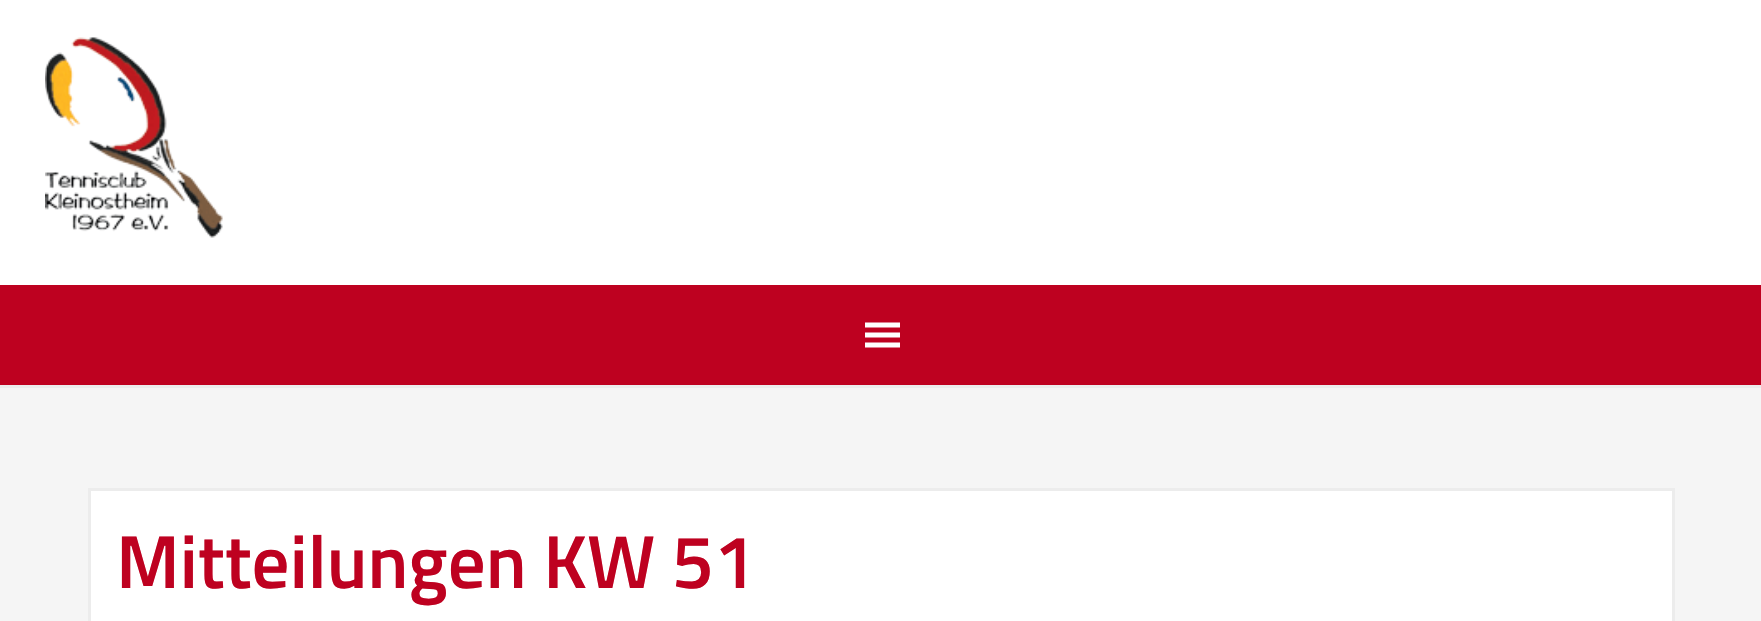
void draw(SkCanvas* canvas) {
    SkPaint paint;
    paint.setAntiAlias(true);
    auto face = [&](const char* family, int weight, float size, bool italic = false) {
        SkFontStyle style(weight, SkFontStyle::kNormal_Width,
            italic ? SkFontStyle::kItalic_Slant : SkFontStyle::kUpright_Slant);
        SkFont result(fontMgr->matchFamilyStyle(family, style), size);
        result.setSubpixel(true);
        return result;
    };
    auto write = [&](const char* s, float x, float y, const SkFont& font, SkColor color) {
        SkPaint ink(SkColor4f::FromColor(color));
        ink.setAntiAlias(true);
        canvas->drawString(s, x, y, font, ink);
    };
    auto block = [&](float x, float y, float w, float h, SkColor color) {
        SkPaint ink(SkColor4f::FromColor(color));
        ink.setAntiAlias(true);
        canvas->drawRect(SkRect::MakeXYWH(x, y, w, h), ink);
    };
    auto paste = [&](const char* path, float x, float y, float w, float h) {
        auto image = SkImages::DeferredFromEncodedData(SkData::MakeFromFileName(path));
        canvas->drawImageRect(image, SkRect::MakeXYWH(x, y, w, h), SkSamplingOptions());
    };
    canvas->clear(SK_ColorWHITE);
    paste("pic1.png", 45, 37, 178, 201);
    block(0, 285, 1761, 100, SkColorSetRGB(190, 1, 32));
    paint.setColor(SK_ColorWHITE);
    canvas->drawPath(SkPathBuilder().moveTo(900, 327.5f).lineTo(900, 322.5f).lineTo(865, 322.5f).lineTo(865, 327.5f).close().moveTo(900, 337.5f).lineTo(900, 332.5f).lineTo(865, 332.5f).lineTo(865, 337.5f).close().moveTo(900, 347.5f).lineTo(900, 342.5f).lineTo(865, 342.5f).lineTo(865, 347.5f).close().detach(), paint);
    block(0, 388, 1761, 233, SkColorSetRGB(245, 245, 245));
    block(0, 385, 1761, 3, SkColorSetRGB(236, 236, 236));
    canvas->drawRect(SkRect::MakeXYWH(89.5f, 489.5f, 1584, 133), paint);
    paint.setStyle(SkPaint::kStroke_Style);
    paint.setStrokeWidth(3);
    paint.setColor(SkColorSetRGB(236, 236, 236));
    canvas->drawRect(SkRect::MakeXYWH(89.5f, 489.5f, 1584, 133), paint);
    auto kFont1 = face("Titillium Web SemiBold", 600, 75);
    write("Mitteilungen KW 51", 116, 588, kFont1, SkColorSetRGB(190, 1, 32));
}
